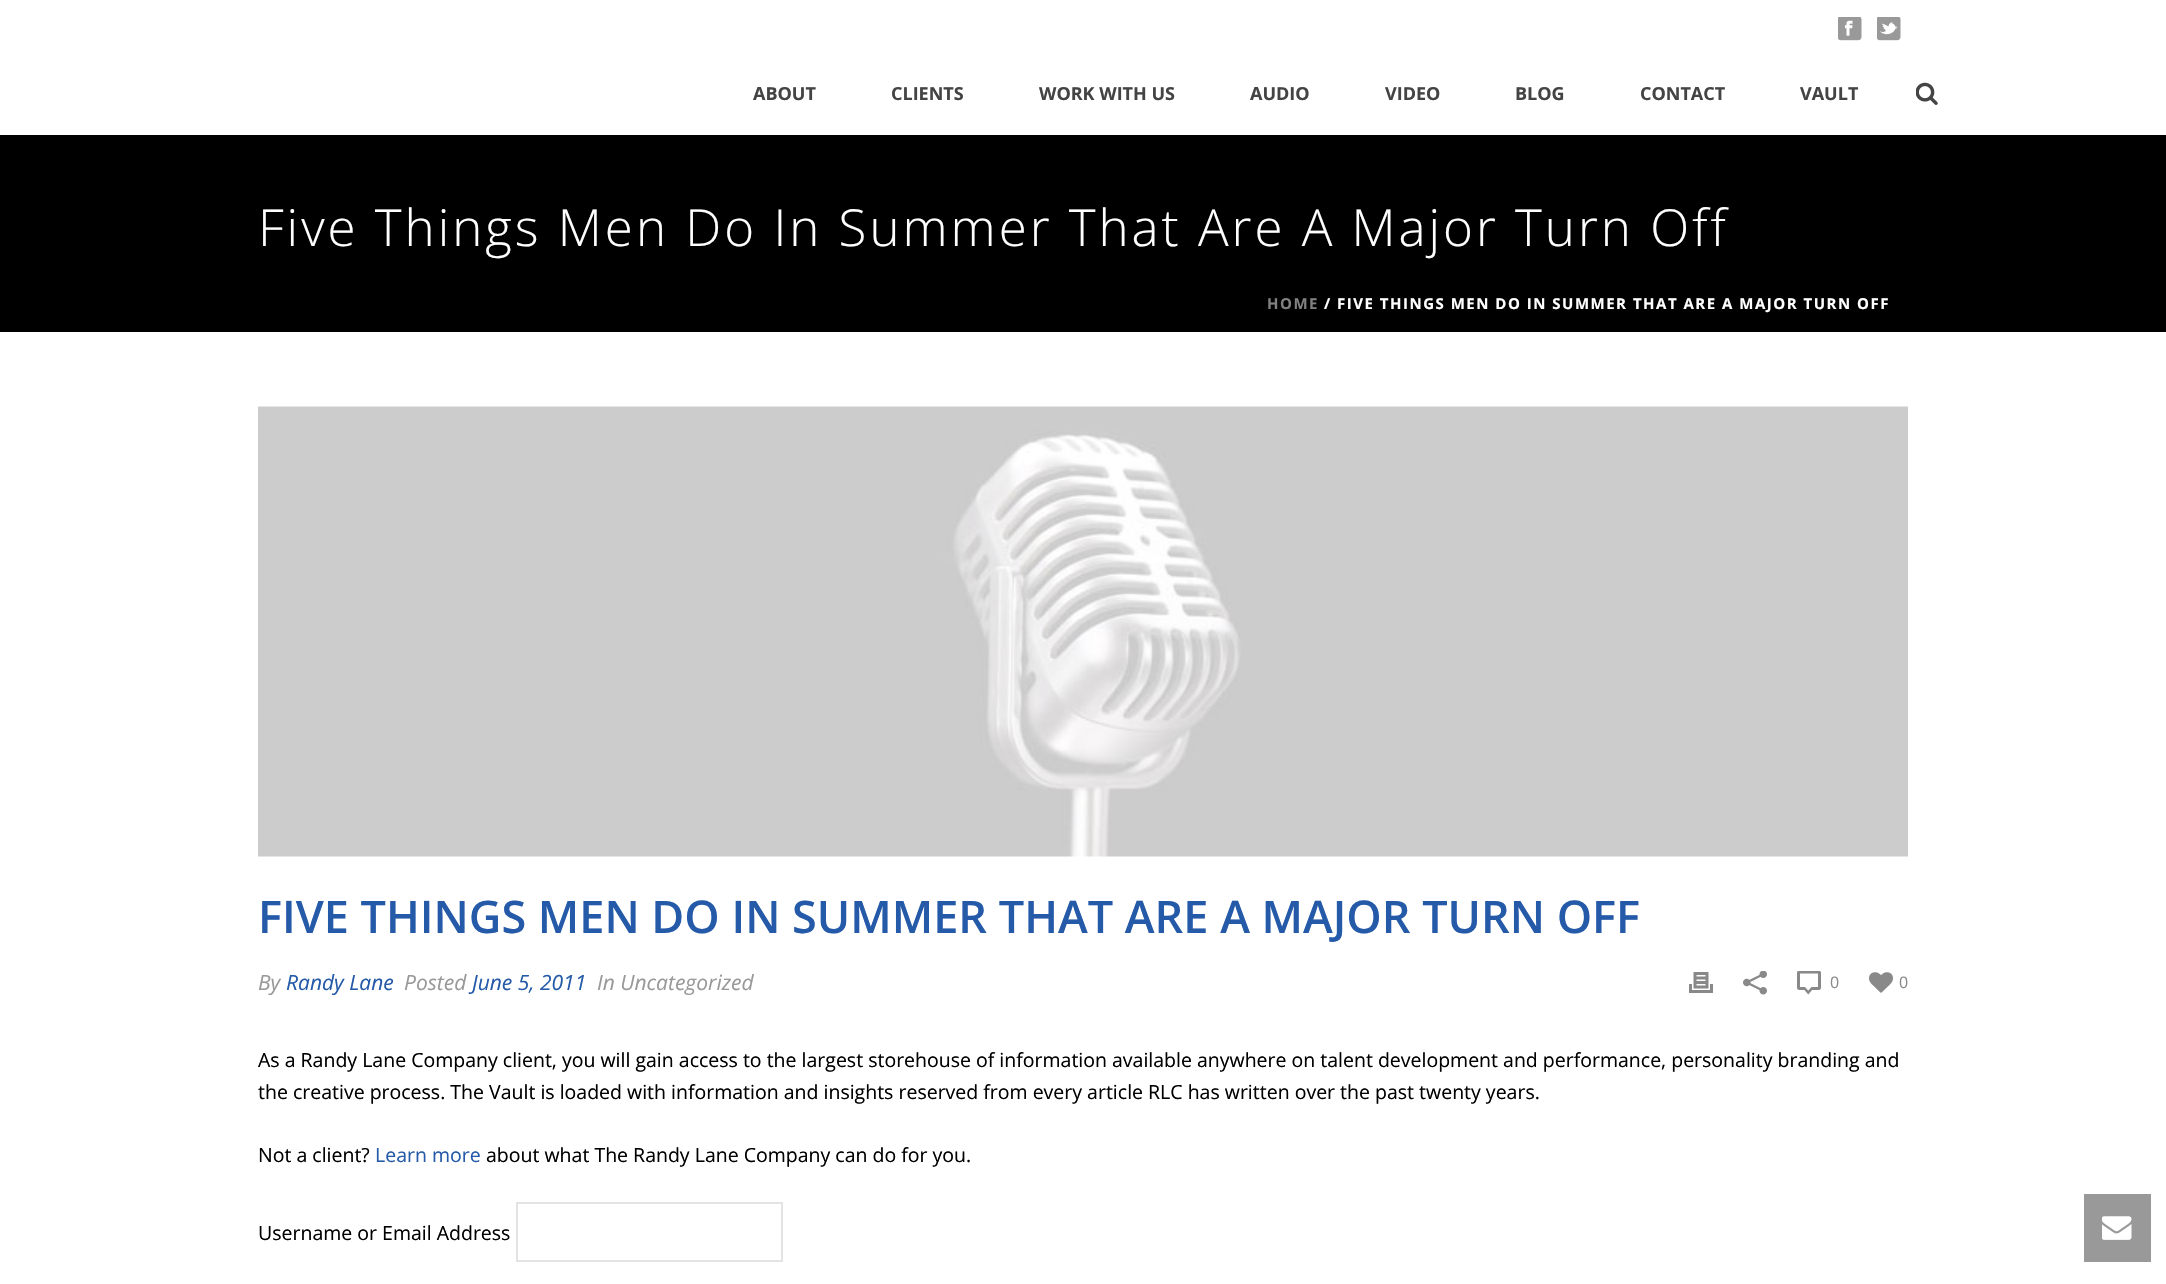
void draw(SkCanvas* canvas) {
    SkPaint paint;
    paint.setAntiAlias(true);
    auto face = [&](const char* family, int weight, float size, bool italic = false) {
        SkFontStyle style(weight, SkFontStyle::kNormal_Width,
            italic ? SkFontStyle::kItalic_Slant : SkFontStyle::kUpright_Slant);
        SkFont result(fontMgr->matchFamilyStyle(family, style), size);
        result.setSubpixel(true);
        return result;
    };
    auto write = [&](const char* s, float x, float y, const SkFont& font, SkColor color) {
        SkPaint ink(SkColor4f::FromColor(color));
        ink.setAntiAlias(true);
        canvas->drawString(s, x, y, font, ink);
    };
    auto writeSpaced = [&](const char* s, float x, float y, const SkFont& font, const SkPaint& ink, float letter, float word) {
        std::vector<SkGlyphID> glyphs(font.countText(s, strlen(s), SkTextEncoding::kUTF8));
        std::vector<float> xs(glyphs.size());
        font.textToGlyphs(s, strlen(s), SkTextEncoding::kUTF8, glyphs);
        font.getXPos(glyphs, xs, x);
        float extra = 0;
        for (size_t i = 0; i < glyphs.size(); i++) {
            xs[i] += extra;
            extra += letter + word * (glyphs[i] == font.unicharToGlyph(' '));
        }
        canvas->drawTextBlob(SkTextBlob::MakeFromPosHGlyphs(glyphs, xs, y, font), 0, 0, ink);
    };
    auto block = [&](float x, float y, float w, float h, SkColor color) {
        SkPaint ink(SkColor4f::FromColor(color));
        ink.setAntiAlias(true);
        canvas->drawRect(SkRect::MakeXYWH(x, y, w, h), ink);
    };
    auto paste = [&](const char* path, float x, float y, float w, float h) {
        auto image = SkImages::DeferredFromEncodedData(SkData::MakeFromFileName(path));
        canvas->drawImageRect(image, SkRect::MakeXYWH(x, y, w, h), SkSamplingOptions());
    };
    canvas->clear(SK_ColorWHITE);
    block(0, 135, 2166, 197, SK_ColorBLACK);
    paste("pic1.png", 1838, 17, 24, 24);
    paste("pic2.png", 1877, 17, 24, 24);
    auto kFont1 = face("Open Sans", 700, 18);
    write("ABOUT", 753, 100, kFont1, SkColorSetRGB(68, 68, 68));
    write("CLIENTS", 891, 100, kFont1, SkColorSetRGB(68, 68, 68));
    write("WORK WITH US", 1039, 100, kFont1, SkColorSetRGB(68, 68, 68));
    write("AUDIO", 1250, 100, kFont1, SkColorSetRGB(68, 68, 68));
    write("VIDEO", 1385, 100, kFont1, SkColorSetRGB(68, 68, 68));
    write("BLOG", 1515, 100, kFont1, SkColorSetRGB(68, 68, 68));
    write("CONTACT", 1640, 100, kFont1, SkColorSetRGB(68, 68, 68));
    write("VAULT", 1800, 100, kFont1, SkColorSetRGB(68, 68, 68));
    paste("pic3.png", 1916, 82, 22, 23);
    auto kFont2 = face("Open Sans", 300, 51);
    paint.setColor(SK_ColorWHITE);
    writeSpaced("Five Things Men Do In Summer That Are A Major Turn Off", 258, 246, kFont2, paint, 3, 0);
    auto kFont3 = face("Open Sans", 700, 15);
    paint.setColor(SkColorSetRGB(128, 128, 128));
    writeSpaced("HOME", 1267, 309, kFont3, paint, 1.5f, 0);
    paint.setColor(SK_ColorWHITE);
    writeSpaced("/ FIVE THINGS MEN DO IN SUMMER THAT ARE A MAJOR TURN OFF", 1324, 309, kFont3, paint, 1.5f, 0);
    paste("pic4.png", 258, 406, 1650, 451);
    auto kFont4 = face("Open Sans", 600, 45);
    write("FIVE THINGS MEN DO IN SUMMER THAT ARE A MAJOR TURN OFF", 258, 933, kFont4, SkColorSetRGB(37, 90, 169));
    auto kFont5 = face("Open Sans", 400, 21, true);
    write("By", 258, 990, kFont5, SkColorSetRGB(153, 153, 153));
    write("Randy Lane", 286, 990, kFont5, SkColorSetRGB(37, 90, 169));
    write("Posted", 404, 990, kFont5, SkColorSetRGB(153, 153, 153));
    write("June 5, 2011", 472, 990, kFont5, SkColorSetRGB(37, 90, 169));
    write("In Uncategorized", 597, 990, kFont5, SkColorSetRGB(153, 153, 153));
    paste("pic5.png", 1689, 972, 24, 21);
    paste("pic6.png", 1743, 971, 24, 24);
    paste("pic7.png", 1797, 971, 24, 24);
    auto kFont6 = face("Open Sans", 400, 16);
    write("0", 1830, 988, kFont6, SkColorSetRGB(137, 137, 137));
    paste("pic8.png", 1869, 972, 24, 21);
    write("0", 1899, 988, kFont6, SkColorSetRGB(137, 137, 137));
    auto kFont7 = face("Open Sans", 400, 19.5f);
    write("As a Randy Lane Company client, you will gain access to the largest storehouse of information available anywhere on talent development and performance, personality branding and", 258, 1067, kFont7, SK_ColorBLACK);
    write("the creative process. The Vault is loaded with information and insights reserved from every article RLC has written over the past twenty years.", 258, 1099, kFont7, SK_ColorBLACK);
    write("Not a client?", 258, 1162, kFont7, SK_ColorBLACK);
    write("Learn more", 375, 1162, kFont7, SkColorSetRGB(37, 90, 169));
    write("about what The Randy Lane Company can do for you.", 486, 1162, kFont7, SK_ColorBLACK);
    write("Username or Email Address", 258, 1240, kFont7, SK_ColorBLACK);
    paint.setStyle(SkPaint::kStroke_Style);
    paint.setStrokeWidth(2);
    paint.setColor(SkColorSetRGB(227, 227, 227));
    canvas->drawRect(SkRect::MakeXYWH(517, 1203, 265, 58), paint);
    block(2084, 1194, 67, 68, SkColorSetRGB(153, 153, 153));
    paste("pic9.png", 2102, 1216, 30, 24);
}
